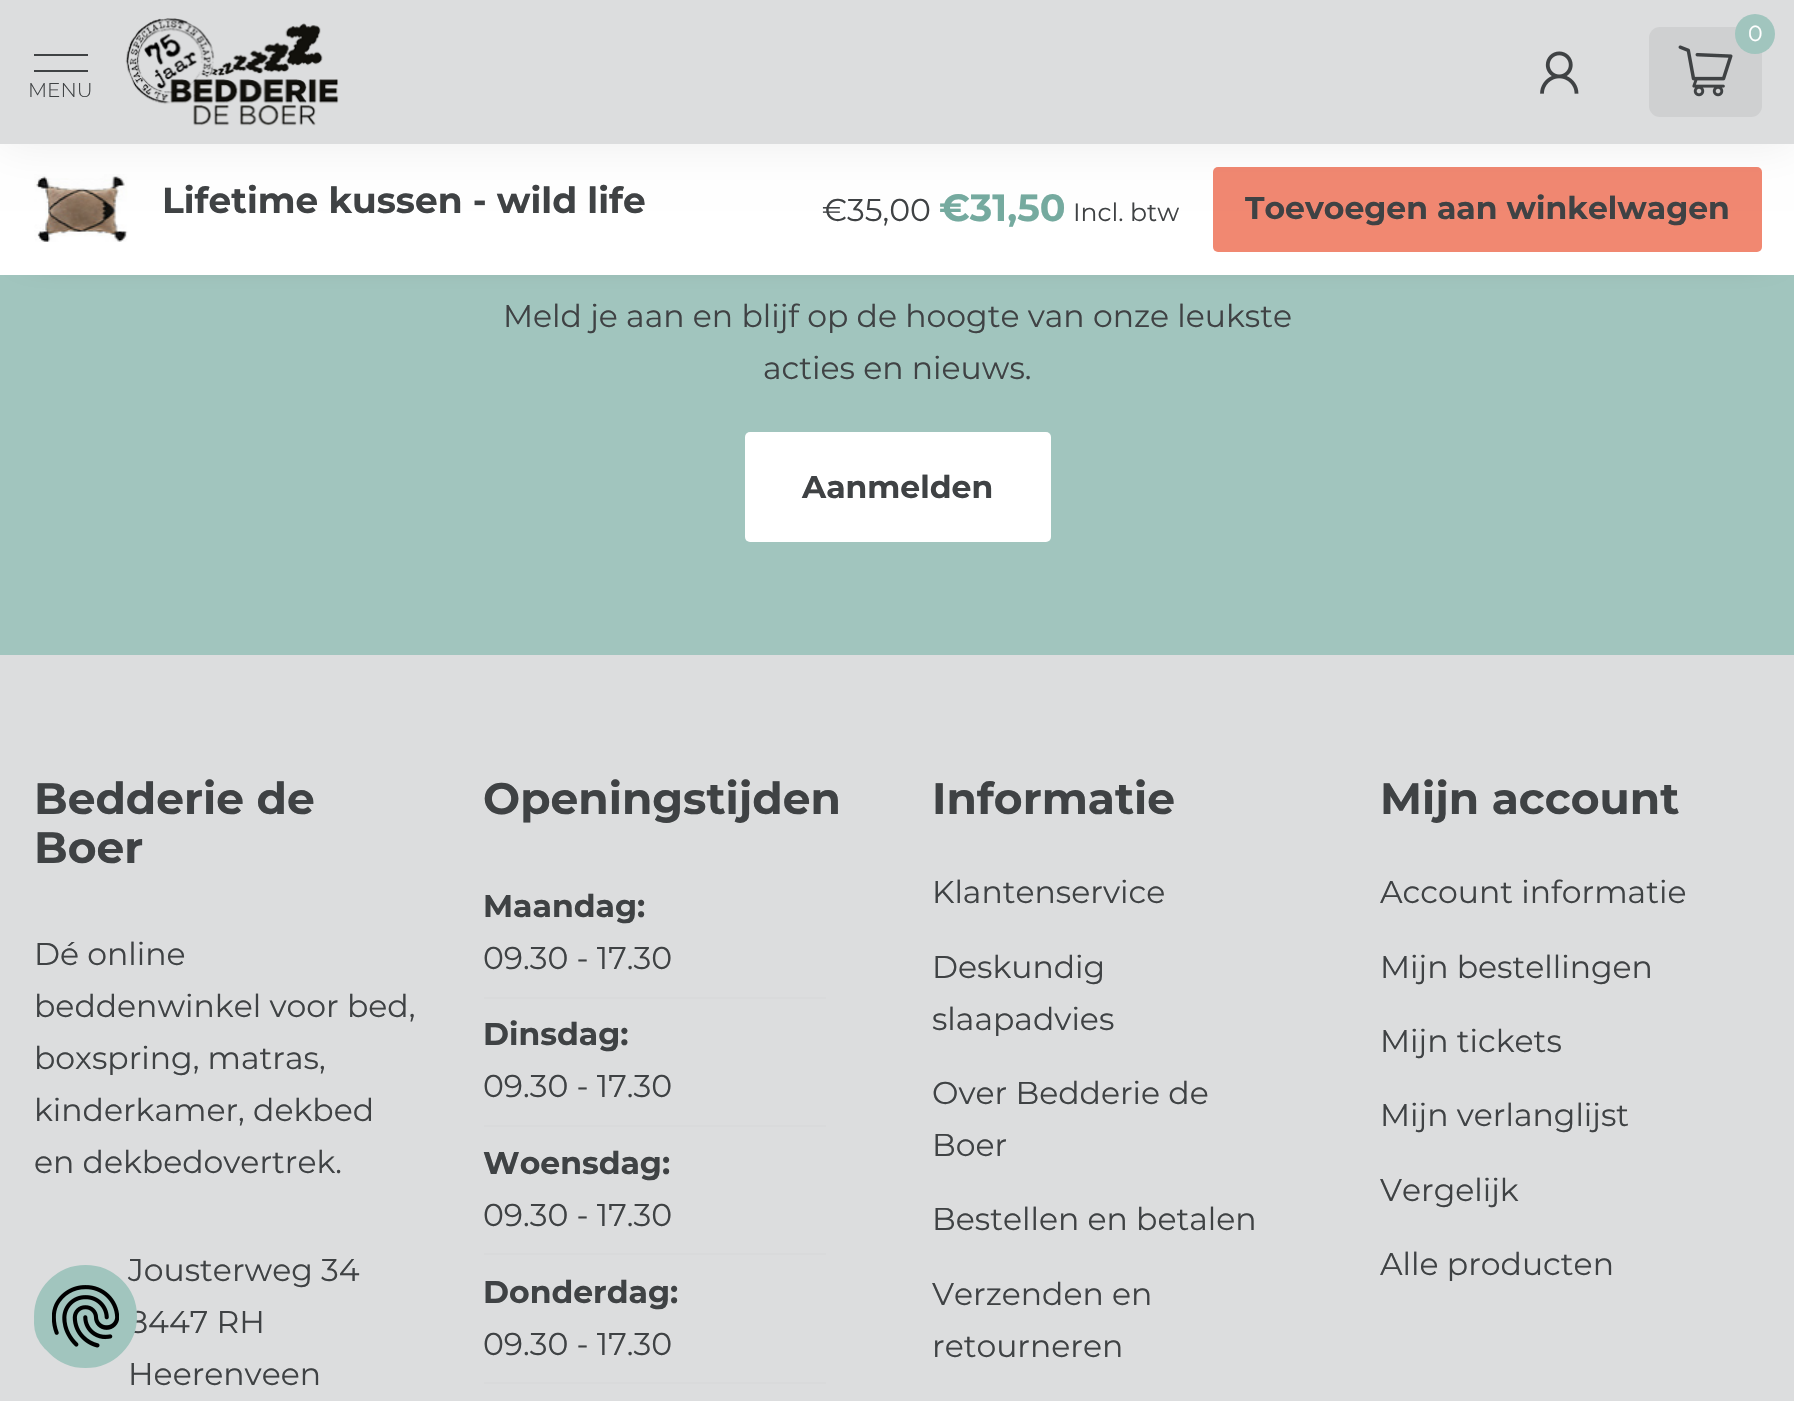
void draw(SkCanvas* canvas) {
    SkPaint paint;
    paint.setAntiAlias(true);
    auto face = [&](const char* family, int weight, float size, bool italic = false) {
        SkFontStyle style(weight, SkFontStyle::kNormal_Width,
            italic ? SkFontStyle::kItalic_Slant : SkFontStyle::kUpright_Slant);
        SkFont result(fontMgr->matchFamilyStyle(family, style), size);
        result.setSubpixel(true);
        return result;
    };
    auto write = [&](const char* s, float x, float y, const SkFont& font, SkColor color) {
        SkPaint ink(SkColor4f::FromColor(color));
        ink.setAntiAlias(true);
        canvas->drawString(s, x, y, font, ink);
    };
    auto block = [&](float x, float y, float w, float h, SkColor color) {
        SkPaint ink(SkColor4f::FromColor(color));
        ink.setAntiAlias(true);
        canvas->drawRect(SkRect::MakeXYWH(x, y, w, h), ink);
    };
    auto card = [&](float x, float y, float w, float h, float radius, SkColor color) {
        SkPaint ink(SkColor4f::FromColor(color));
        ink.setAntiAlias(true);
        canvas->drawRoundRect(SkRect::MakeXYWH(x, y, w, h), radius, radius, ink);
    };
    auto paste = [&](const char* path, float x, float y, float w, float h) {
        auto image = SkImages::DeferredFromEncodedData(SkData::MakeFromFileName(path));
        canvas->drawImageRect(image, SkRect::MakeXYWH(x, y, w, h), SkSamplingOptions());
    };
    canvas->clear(SkColorSetRGB(220, 221, 222));
    block(0, 275, 1794, 380, SkColorSetRGB(161, 197, 190));
    paint.setColor(SkColorSetRGB(63, 66, 68));
    paint.setMaskFilter(SkMaskFilter::MakeBlur(kNormal_SkBlurStyle, 17));
    canvas->drawRect(SkRect::MakeXYWH(32, 180, 1732, 68), paint);
    paint.setMaskFilter(nullptr);
    block(0, 144, 1794, 131, SK_ColorWHITE);
    paste("pic4.png", 34, 174, 94, 68);
    card(1213, 167, 549, 85, 5, SkColorSetRGB(241, 136, 113));
    paint.setColor(SkColorSetARGB(18, 0, 0, 0));
    paint.setMaskFilter(SkMaskFilter::MakeBlur(kNormal_SkBlurStyle, 22.5f));
    canvas->drawRect(SkRect::MakeXYWH(0, -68, 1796, 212), paint);
    paint.setMaskFilter(nullptr);
    block(0, 0, 1794, 144, SkColorSetRGB(220, 221, 222));
    card(1649, 27, 113, 90, 11, SkColorSetRGB(207, 208, 209));
    paint.setColor(SkColorSetRGB(161, 197, 190));
    canvas->drawCircle(1755, 34, 20, paint);
    auto kFont1 = face("Montserrat", 400, 22);
    write("0", 1748, 41, kFont1, SK_ColorWHITE);
    paste("pic1.png", 1678, 45, 55, 52);
    paste("pic2.png", 1540, 51, 39, 43);
    block(34, 54, 54, 2, SkColorSetRGB(63, 66, 68));
    block(34, 70, 54, 2, SkColorSetRGB(63, 66, 68));
    auto kFont2 = face("Montserrat", 300, 20);
    write("MENU", 28, 97, kFont2, SkColorSetRGB(63, 66, 68));
    paste("pic3.png", 125, 18, 214, 108);
    auto kFont3 = face("Montserrat", 700, 36);
    write("Lifetime kussen - wild life", 162, 213, kFont3, SkColorSetRGB(63, 66, 68));
    auto kFont4 = face("Montserrat", 400, 31.5f);
    write("€35,00", 822, 221, kFont4, SkColorSetRGB(63, 66, 68));
    auto kFont5 = face("Montserrat", 700, 38);
    write("€31,50", 939, 221, kFont5, SkColorSetRGB(117, 170, 159));
    auto kFont6 = face("Montserrat", 400, 25);
    write("Incl. btw", 1073, 221, kFont6, SkColorSetRGB(63, 66, 68));
    auto kFont7 = face("Montserrat", 700, 31.5f);
    write("Toevoegen aan winkelwagen", 1245, 219, kFont7, SkColorSetRGB(63, 66, 68));
    write("Meld je aan en blijf op de hoogte van onze leukste", 503, 327, kFont4, SkColorSetRGB(63, 66, 68));
    write("acties en nieuws.", 763, 379, kFont4, SkColorSetRGB(63, 66, 68));
    card(745, 432, 306, 110, 5, SK_ColorWHITE);
    write("Aanmelden", 802, 498, kFont7, SkColorSetRGB(63, 66, 68));
    auto kFont8 = face("Montserrat", 700, 44);
    write("Bedderie de", 34, 814, kFont8, SkColorSetRGB(63, 66, 68));
    write("Boer", 34, 863, kFont8, SkColorSetRGB(63, 66, 68));
    write("Dé online", 34, 965, kFont4, SkColorSetRGB(63, 66, 68));
    write("beddenwinkel voor bed,", 34, 1017, kFont4, SkColorSetRGB(63, 66, 68));
    write("boxspring, matras,", 34, 1069, kFont4, SkColorSetRGB(63, 66, 68));
    write("kinderkamer, dekbed", 34, 1121, kFont4, SkColorSetRGB(63, 66, 68));
    write("en dekbedovertrek.", 34, 1173, kFont4, SkColorSetRGB(63, 66, 68));
    canvas->drawCircle(70, 1323, 36, paint);
    write("Jousterweg 34", 128, 1281, kFont4, SkColorSetRGB(63, 66, 68));
    write("8447 RH", 128, 1333, kFont4, SkColorSetRGB(63, 66, 68));
    write("Heerenveen", 128, 1385, kFont4, SkColorSetRGB(63, 66, 68));
    write("Openingstijden", 483, 814, kFont8, SkColorSetRGB(63, 66, 68));
    block(484, 997, 342, 2, SkColorSetRGB(217, 218, 219));
    write("Maandag:", 483, 917, kFont7, SkColorSetRGB(63, 66, 68));
    write("09.30 - 17.30", 483, 969, kFont4, SkColorSetRGB(63, 66, 68));
    block(484, 1125, 342, 2, SkColorSetRGB(217, 218, 219));
    write("Dinsdag:", 483, 1045, kFont7, SkColorSetRGB(63, 66, 68));
    write("09.30 - 17.30", 483, 1097, kFont4, SkColorSetRGB(63, 66, 68));
    block(484, 1253, 342, 2, SkColorSetRGB(217, 218, 219));
    write("Woensdag:", 483, 1174, kFont7, SkColorSetRGB(63, 66, 68));
    write("09.30 - 17.30", 483, 1226, kFont4, SkColorSetRGB(63, 66, 68));
    block(484, 1382, 342, 2, SkColorSetRGB(217, 218, 219));
    write("Donderdag:", 483, 1303, kFont7, SkColorSetRGB(63, 66, 68));
    write("09.30 - 17.30", 483, 1355, kFont4, SkColorSetRGB(63, 66, 68));
    write("Informatie", 932, 814, kFont8, SkColorSetRGB(63, 66, 68));
    write("Klantenservice", 932, 903, kFont4, SkColorSetRGB(63, 66, 68));
    write("Deskundig", 932, 978, kFont4, SkColorSetRGB(63, 66, 68));
    write("slaapadvies", 932, 1030, kFont4, SkColorSetRGB(63, 66, 68));
    write("Over Bedderie de", 932, 1104, kFont4, SkColorSetRGB(63, 66, 68));
    write("Boer", 932, 1156, kFont4, SkColorSetRGB(63, 66, 68));
    write("Bestellen en betalen", 932, 1230, kFont4, SkColorSetRGB(63, 66, 68));
    write("Verzenden en", 932, 1305, kFont4, SkColorSetRGB(63, 66, 68));
    write("retourneren", 932, 1357, kFont4, SkColorSetRGB(63, 66, 68));
    write("Mijn account", 1380, 814, kFont8, SkColorSetRGB(63, 66, 68));
    write("Account informatie", 1380, 903, kFont4, SkColorSetRGB(63, 66, 68));
    write("Mijn bestellingen", 1380, 978, kFont4, SkColorSetRGB(63, 66, 68));
    write("Mijn tickets", 1380, 1052, kFont4, SkColorSetRGB(63, 66, 68));
    write("Mijn verlanglijst", 1380, 1126, kFont4, SkColorSetRGB(63, 66, 68));
    write("Vergelijk", 1380, 1201, kFont4, SkColorSetRGB(63, 66, 68));
    write("Alle producten", 1380, 1275, kFont4, SkColorSetRGB(63, 66, 68));
    canvas->drawCircle(85.5f, 1316.5f, 50.5f, paint);
    paint.setStyle(SkPaint::kStroke_Style);
    paint.setStrokeWidth(2);
    canvas->drawCircle(85.5f, 1316.5f, 50.5f, paint);
    paste("pic5.png", 52, 1285, 67, 63);
}
